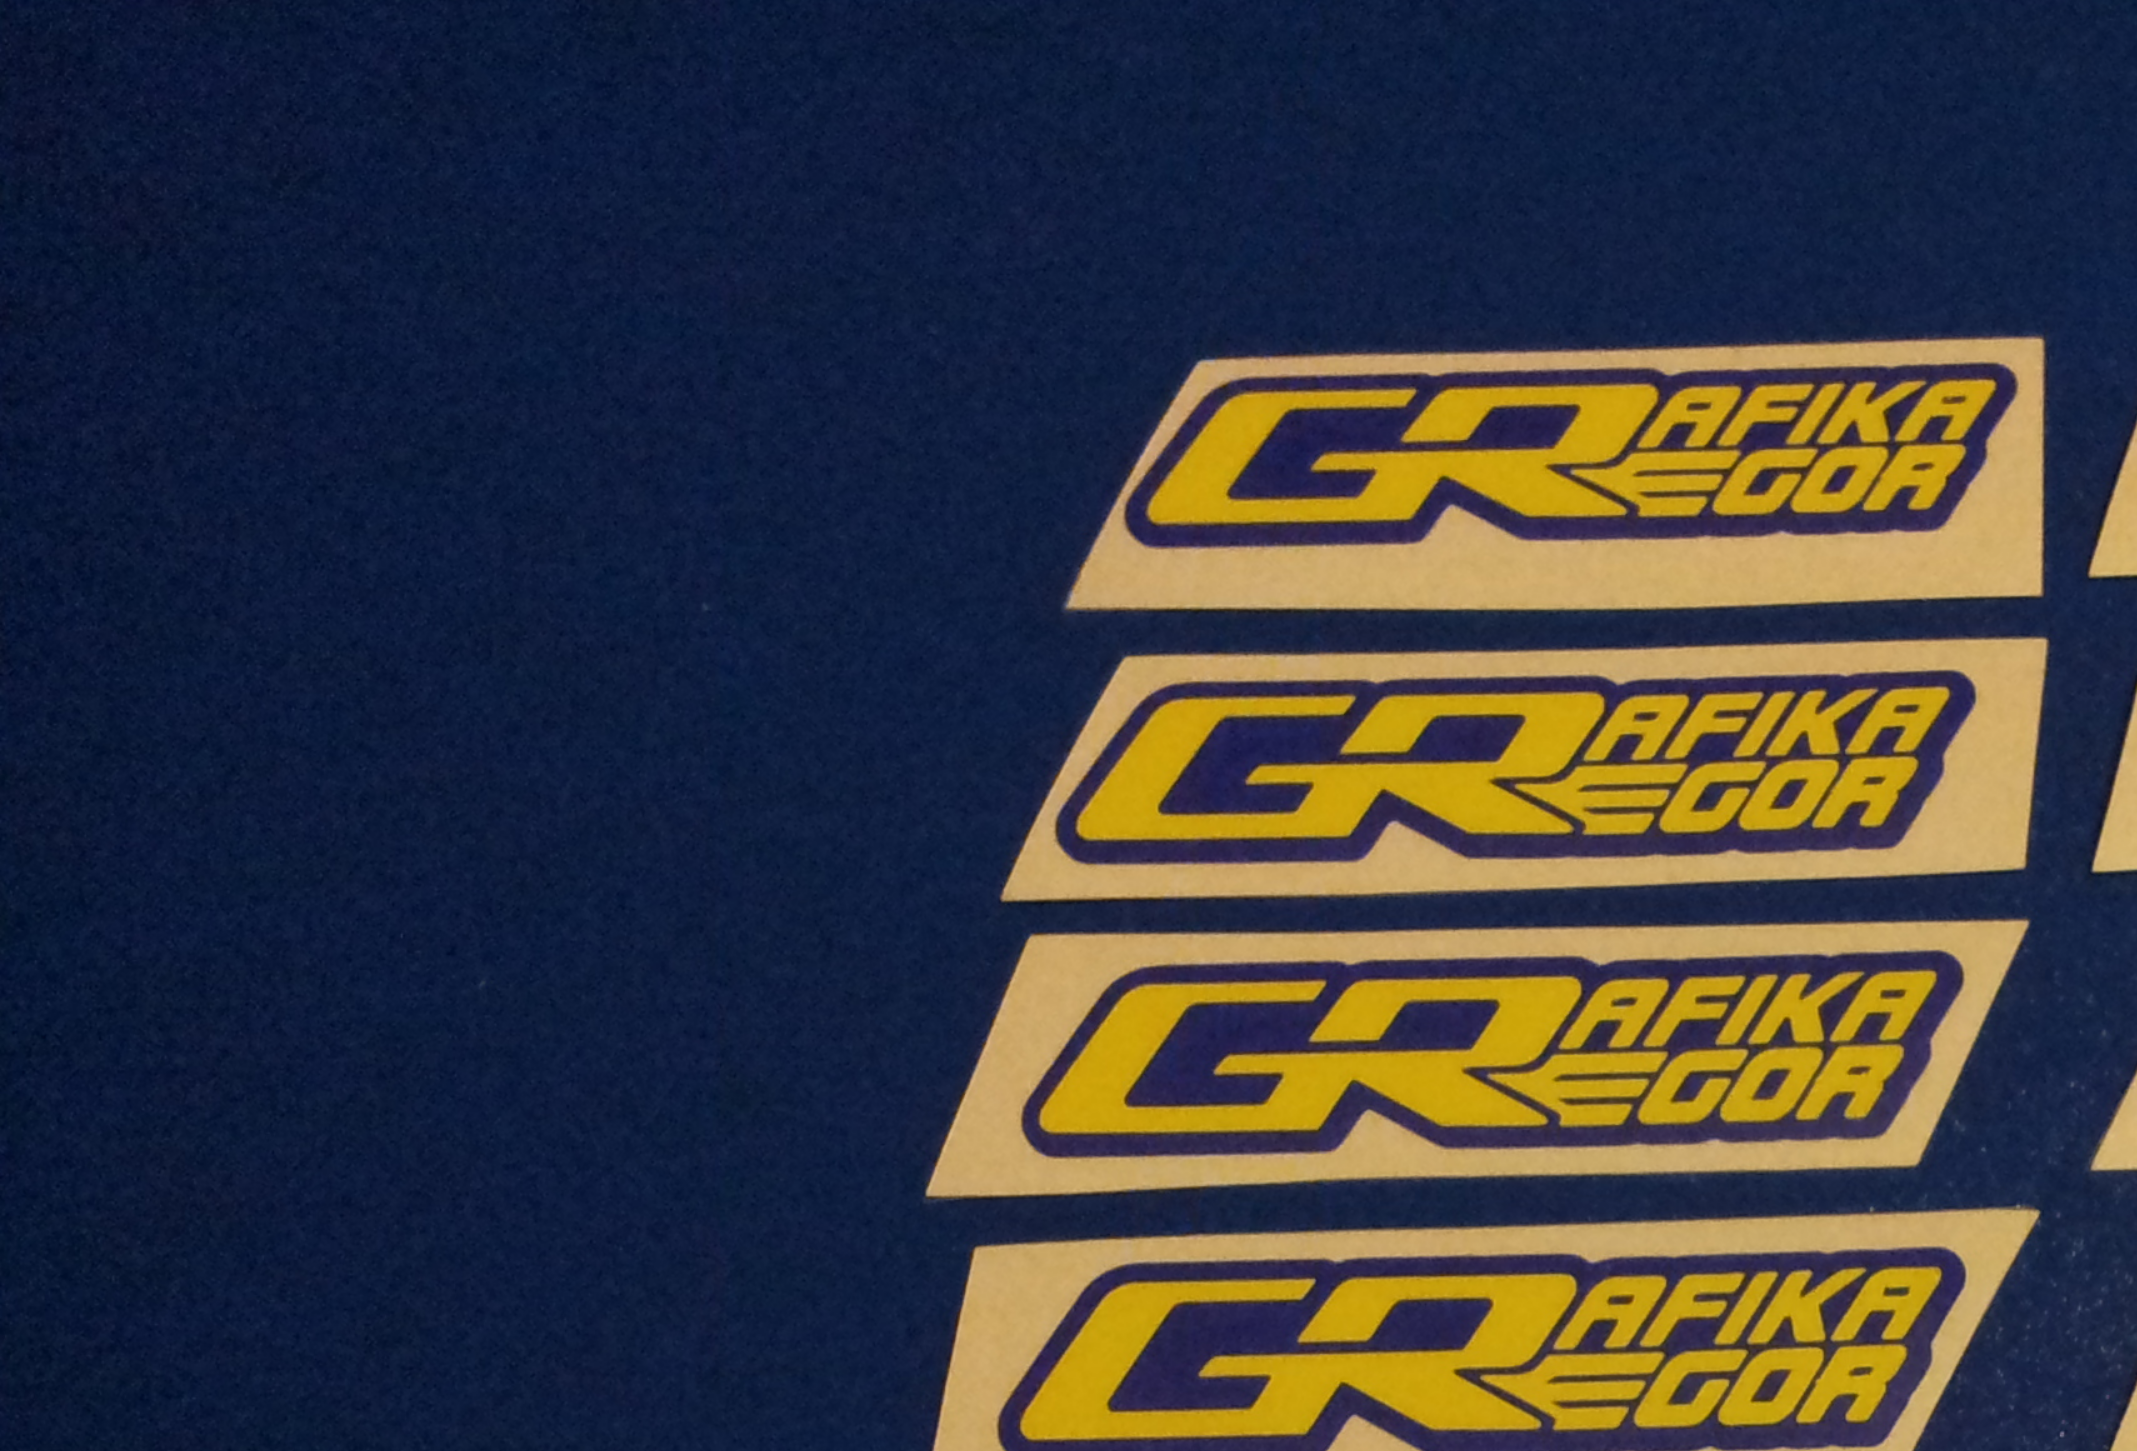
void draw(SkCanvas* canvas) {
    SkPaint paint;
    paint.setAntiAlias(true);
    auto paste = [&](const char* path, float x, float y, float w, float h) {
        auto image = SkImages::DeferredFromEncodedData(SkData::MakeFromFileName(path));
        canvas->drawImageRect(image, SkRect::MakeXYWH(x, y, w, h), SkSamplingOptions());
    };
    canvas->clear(SK_ColorWHITE);
    paste("pic1.png", 0, 0, 2137, 1451);
}
